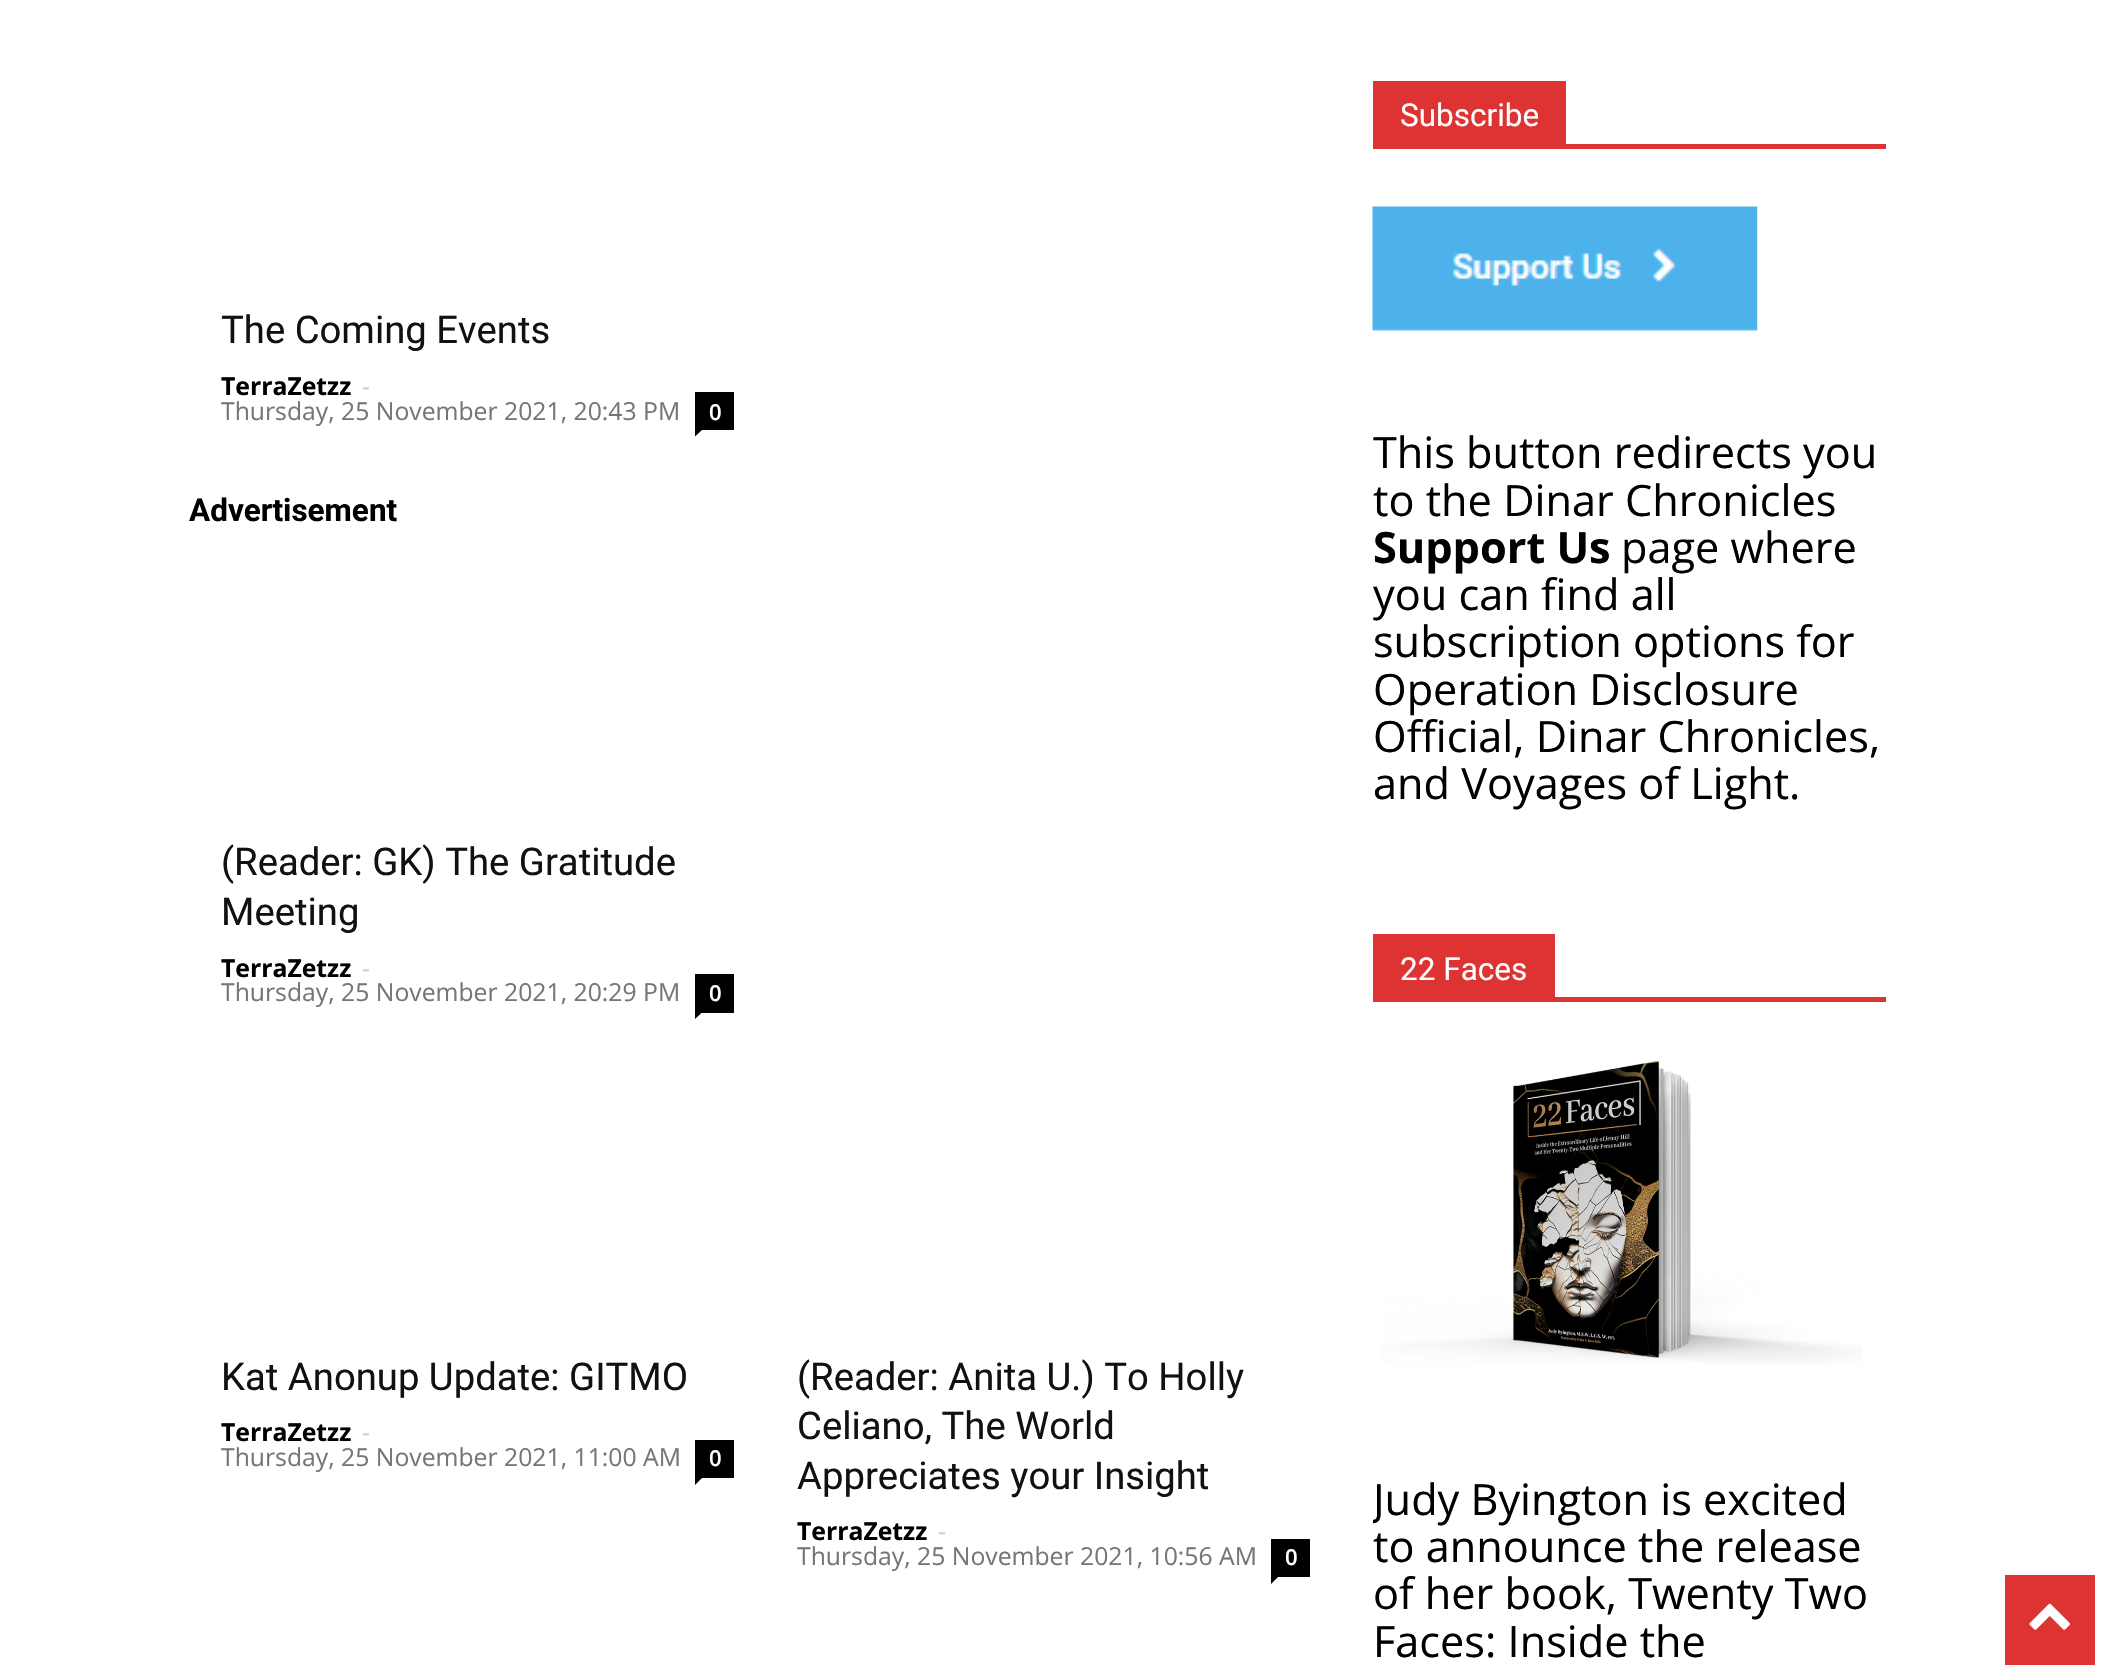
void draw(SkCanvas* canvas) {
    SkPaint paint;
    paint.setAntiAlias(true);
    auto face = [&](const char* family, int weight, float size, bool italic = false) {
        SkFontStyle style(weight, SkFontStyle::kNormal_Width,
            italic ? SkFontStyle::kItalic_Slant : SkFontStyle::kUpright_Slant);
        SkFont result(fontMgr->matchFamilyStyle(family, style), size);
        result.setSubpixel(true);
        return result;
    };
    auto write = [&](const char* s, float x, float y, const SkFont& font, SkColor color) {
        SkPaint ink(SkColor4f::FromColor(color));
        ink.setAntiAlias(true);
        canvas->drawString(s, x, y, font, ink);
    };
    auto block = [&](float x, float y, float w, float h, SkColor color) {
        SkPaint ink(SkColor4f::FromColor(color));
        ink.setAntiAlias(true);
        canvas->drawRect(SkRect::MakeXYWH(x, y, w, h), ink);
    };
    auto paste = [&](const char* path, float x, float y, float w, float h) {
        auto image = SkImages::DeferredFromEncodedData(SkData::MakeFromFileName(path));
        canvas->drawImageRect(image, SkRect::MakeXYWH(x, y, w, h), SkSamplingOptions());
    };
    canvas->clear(SK_ColorWHITE);
    auto kFont1 = face("Roboto", 400, 38.25f);
    write("The Coming Events", 221, 343, kFont1, SkColorSetRGB(17, 17, 17));
    auto kFont2 = face("Open Sans", 700, 24.75f);
    write("TerraZetzz", 221, 395, kFont2, SK_ColorBLACK);
    auto kFont3 = face("Open Sans", 400, 24.75f);
    write("-", 362, 395, kFont3, SkColorSetRGB(204, 204, 204));
    write("Thursday, 25 November 2021, 20:43 PM", 221, 420, kFont3, SkColorSetRGB(118, 118, 118));
    block(695, 392, 39, 38, SK_ColorBLACK);
    auto kFont4 = face("Open Sans", 600, 22);
    write("0", 709, 420, kFont4, SK_ColorWHITE);
    paint.setColor(SK_ColorBLACK);
    canvas->drawPath(SkPathBuilder().moveTo(695, 430).lineTo(702, 430).lineTo(695, 436.5f).close().detach(), paint);
    auto kFont5 = face("Roboto", 700, 31.5f);
    write("Advertisement", 189, 521, kFont5, SK_ColorBLACK);
    write("(Reader: GK) The Gratitude", 221, 875, kFont1, SkColorSetRGB(17, 17, 17));
    write("Meeting", 221, 925, kFont1, SkColorSetRGB(17, 17, 17));
    write("TerraZetzz", 221, 977, kFont2, SK_ColorBLACK);
    write("-", 362, 977, kFont3, SkColorSetRGB(204, 204, 204));
    write("Thursday, 25 November 2021, 20:29 PM", 221, 1001, kFont3, SkColorSetRGB(118, 118, 118));
    block(695, 974, 39, 39, SK_ColorBLACK);
    write("0", 709, 1001, kFont4, SK_ColorWHITE);
    canvas->drawPath(SkPathBuilder().moveTo(695, 1012.5f).lineTo(702, 1012.5f).lineTo(695, 1019).close().detach(), paint);
    write("Kat Anonup Update: GITMO", 221, 1390, kFont1, SkColorSetRGB(17, 17, 17));
    write("TerraZetzz", 221, 1441, kFont2, SK_ColorBLACK);
    write("-", 362, 1441, kFont3, SkColorSetRGB(204, 204, 204));
    write("Thursday, 25 November 2021, 11:00 AM", 221, 1466, kFont3, SkColorSetRGB(118, 118, 118));
    block(695, 1440, 39, 38, SK_ColorBLACK);
    write("0", 709, 1466, kFont4, SK_ColorWHITE);
    canvas->drawPath(SkPathBuilder().moveTo(695, 1478).lineTo(702, 1478).lineTo(695, 1485).close().detach(), paint);
    write("(Reader: Anita U.) To Holly", 797, 1390, kFont1, SkColorSetRGB(17, 17, 17));
    write("Celiano, The World", 797, 1439, kFont1, SkColorSetRGB(17, 17, 17));
    write("Appreciates your Insight", 797, 1489, kFont1, SkColorSetRGB(17, 17, 17));
    write("TerraZetzz", 797, 1540, kFont2, SK_ColorBLACK);
    write("-", 938, 1540, kFont3, SkColorSetRGB(204, 204, 204));
    write("Thursday, 25 November 2021, 10:56 AM", 797, 1565, kFont3, SkColorSetRGB(118, 118, 118));
    block(1271, 1539, 39, 38, SK_ColorBLACK);
    write("0", 1285, 1565, kFont4, SK_ColorWHITE);
    canvas->drawPath(SkPathBuilder().moveTo(1271, 1577).lineTo(1278, 1577).lineTo(1271, 1584).close().detach(), paint);
    block(1373, 144, 513, 5, SkColorSetRGB(221, 51, 51));
    block(1373, 81, 193, 63, SkColorSetRGB(221, 51, 51));
    auto kFont6 = face("Roboto", 400, 31.5f);
    write("Subscribe", 1400, 126, kFont6, SK_ColorWHITE);
    paste("pic1.png", 1372, 206, 386, 125);
    canvas->save();
    canvas->clipRect(SkRect::MakeXYWH(1373, 428, 513, 420));
    auto kFont7 = face("Open Sans", 400, 43.25f);
    write("This button redirects you", 1373, 468, kFont7, SK_ColorBLACK);
    canvas->restore();
    write("to the Dinar Chronicles", 1373, 516, kFont7, SK_ColorBLACK);
    auto kFont8 = face("Open Sans", 700, 43.25f);
    write("Support Us", 1373, 563, kFont8, SK_ColorBLACK);
    write("page where", 1621, 563, kFont7, SK_ColorBLACK);
    canvas->save();
    canvas->clipRect(SkRect::MakeXYWH(1373, 428, 513, 420));
    write("you can find all", 1373, 610, kFont7, SK_ColorBLACK);
    canvas->restore();
    write("subscription options for", 1373, 657, kFont7, SK_ColorBLACK);
    write("Operation Disclosure", 1373, 705, kFont7, SK_ColorBLACK);
    write("Official, Dinar Chronicles,", 1373, 752, kFont7, SK_ColorBLACK);
    write("and Voyages of Light.", 1373, 799, kFont7, SK_ColorBLACK);
    block(1373, 997, 513, 5, SkColorSetRGB(221, 51, 51));
    block(1373, 934, 182, 63, SkColorSetRGB(221, 51, 51));
    write("22 Faces", 1400, 980, kFont6, SK_ColorWHITE);
    paste("pic2.png", 1381, 1061, 481, 304);
    canvas->save();
    canvas->clipRect(SkRect::MakeXYWH(1373, 1474, 513, 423));
    write("Judy Byington is excited", 1373, 1515, kFont7, SK_ColorBLACK);
    canvas->restore();
    write("to announce the release", 1373, 1562, kFont7, SK_ColorBLACK);
    write("of her book, Twenty Two", 1373, 1609, kFont7, SK_ColorBLACK);
    write("Faces: Inside the", 1373, 1657, kFont7, SK_ColorBLACK);
    block(2005, 1575, 90, 90, SkColorSetRGB(221, 51, 51));
    paste("pic3.png", 2029, 1603, 41, 27);
}
